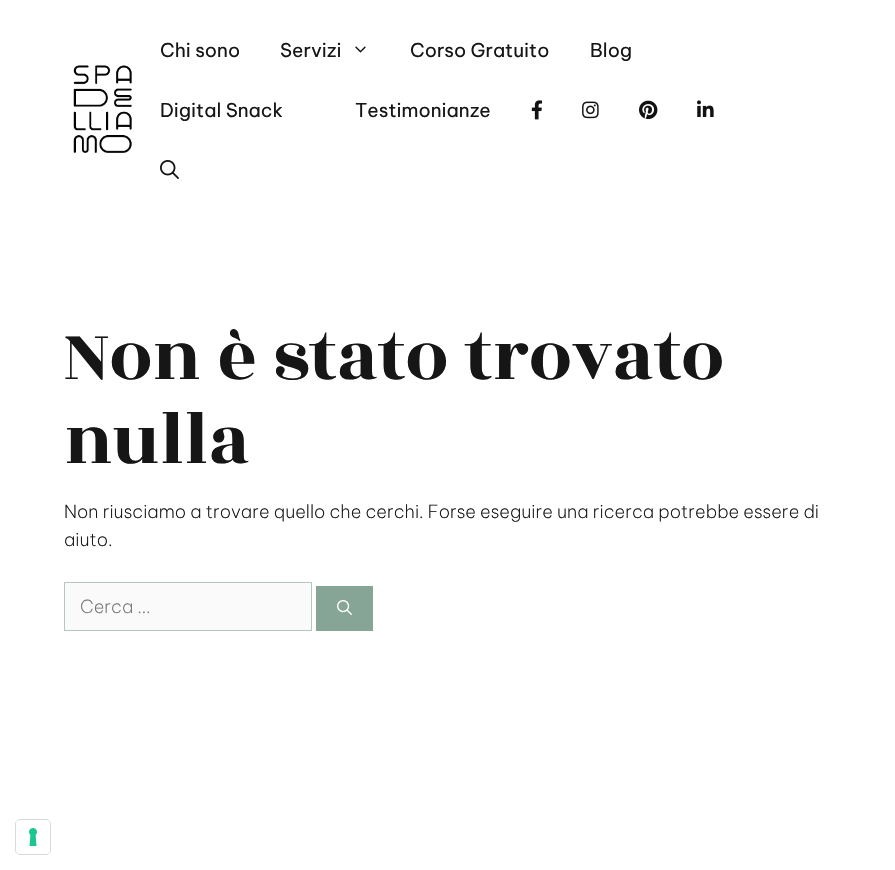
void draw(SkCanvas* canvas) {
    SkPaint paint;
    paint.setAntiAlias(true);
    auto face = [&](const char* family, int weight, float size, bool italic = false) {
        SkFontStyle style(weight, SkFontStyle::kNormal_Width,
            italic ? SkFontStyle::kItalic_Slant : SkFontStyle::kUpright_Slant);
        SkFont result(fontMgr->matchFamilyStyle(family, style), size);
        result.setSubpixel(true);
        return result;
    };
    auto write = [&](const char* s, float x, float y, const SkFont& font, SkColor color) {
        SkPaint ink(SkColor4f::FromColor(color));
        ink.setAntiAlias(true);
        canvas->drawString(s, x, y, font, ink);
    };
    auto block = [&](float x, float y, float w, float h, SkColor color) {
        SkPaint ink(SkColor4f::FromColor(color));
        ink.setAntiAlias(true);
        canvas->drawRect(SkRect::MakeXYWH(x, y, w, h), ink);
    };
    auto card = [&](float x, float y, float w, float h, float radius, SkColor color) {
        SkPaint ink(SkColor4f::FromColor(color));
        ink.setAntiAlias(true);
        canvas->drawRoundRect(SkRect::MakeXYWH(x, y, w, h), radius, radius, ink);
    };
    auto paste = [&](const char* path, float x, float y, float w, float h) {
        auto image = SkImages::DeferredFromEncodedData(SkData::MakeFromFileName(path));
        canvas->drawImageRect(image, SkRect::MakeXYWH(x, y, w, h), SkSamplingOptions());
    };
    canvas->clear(SK_ColorWHITE);
    paste("pic1.png", 73, 65, 59, 88);
    auto kFont1 = face("Be Vietnam Pro", 400, 19);
    write("Chi sono", 160, 57, kFont1, SkColorSetRGB(22, 22, 22));
    write("Servizi", 280, 57, kFont1, SkColorSetRGB(22, 22, 22));
    paste("pic2.png", 355, 46, 11, 7);
    write("Corso Gratuito", 410, 57, kFont1, SkColorSetRGB(22, 22, 22));
    write("Blog", 590, 57, kFont1, SkColorSetRGB(22, 22, 22));
    write("Digital Snack", 160, 117, kFont1, SkColorSetRGB(22, 22, 22));
    write("Testimonianze", 355, 117, kFont1, SkColorSetRGB(22, 22, 22));
    paste("pic3.png", 531, 100, 12, 20);
    paste("pic4.png", 582, 101, 17, 18);
    paste("pic5.png", 639, 100, 19, 20);
    paste("pic6.png", 697, 100, 17, 17);
    paste("pic7.png", 160, 160, 19, 19);
    auto kFont2 = face("Rozha One", 400, 76);
    write("Non è stato trovato", 64, 379, kFont2, SkColorSetRGB(22, 22, 22));
    write("nulla", 64, 463, kFont2, SkColorSetRGB(22, 22, 22));
    auto kFont3 = face("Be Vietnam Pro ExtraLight", 200, 18);
    write("Non riusciamo a trovare quello che cerchi. Forse eseguire una ricerca potrebbe essere di", 64, 518, kFont3, SkColorSetRGB(22, 22, 22));
    write("aiuto.", 64, 546, kFont3, SkColorSetRGB(22, 22, 22));
    paint.setColor(SkColorSetRGB(250, 250, 250));
    canvas->drawRect(SkRect::MakeXYWH(64.5f, 582.5f, 247, 48), paint);
    paint.setStyle(SkPaint::kStroke_Style);
    paint.setStrokeWidth(1);
    paint.setColor(SkColorSetRGB(180, 198, 190));
    canvas->drawRect(SkRect::MakeXYWH(64.5f, 582.5f, 247, 48), paint);
    write("Cerca …", 80, 613, kFont3, SkColorSetRGB(117, 117, 117));
    block(316, 586, 57, 45, SkColorSetRGB(134, 165, 151));
    paste("pic8.png", 337, 600, 15, 15);
    paint.setColor(SkColorSetRGB(217, 217, 217));
    canvas->drawRoundRect(SkRect::MakeXYWH(15.5f, 819.5f, 35, 35), 4.5f, 4.5f, paint);
    card(16, 820, 34, 34, 4, SK_ColorWHITE);
    paste("pic9.png", 29, 828, 8, 18);
}
